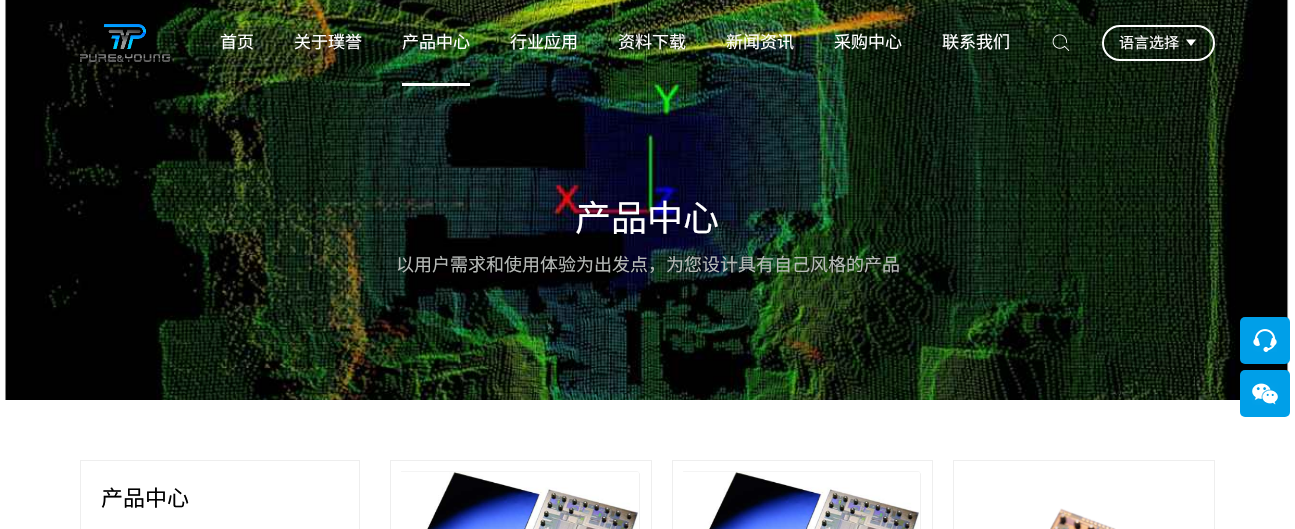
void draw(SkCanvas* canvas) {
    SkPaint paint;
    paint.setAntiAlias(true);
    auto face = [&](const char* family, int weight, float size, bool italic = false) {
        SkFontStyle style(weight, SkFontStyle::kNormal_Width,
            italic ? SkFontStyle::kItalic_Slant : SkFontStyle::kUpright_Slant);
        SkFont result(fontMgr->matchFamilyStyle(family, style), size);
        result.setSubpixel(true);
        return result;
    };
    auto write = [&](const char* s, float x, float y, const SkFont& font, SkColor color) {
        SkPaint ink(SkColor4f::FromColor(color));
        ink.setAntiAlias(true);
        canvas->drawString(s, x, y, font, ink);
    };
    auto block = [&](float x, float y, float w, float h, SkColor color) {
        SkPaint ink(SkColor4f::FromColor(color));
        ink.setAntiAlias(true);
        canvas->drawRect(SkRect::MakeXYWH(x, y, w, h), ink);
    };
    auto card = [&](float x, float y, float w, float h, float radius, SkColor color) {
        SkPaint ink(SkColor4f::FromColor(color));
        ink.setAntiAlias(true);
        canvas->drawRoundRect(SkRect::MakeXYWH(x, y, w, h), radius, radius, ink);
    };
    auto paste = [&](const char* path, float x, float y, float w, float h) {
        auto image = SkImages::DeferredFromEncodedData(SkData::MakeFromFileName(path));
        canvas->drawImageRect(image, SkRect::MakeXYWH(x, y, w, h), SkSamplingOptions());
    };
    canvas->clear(SK_ColorWHITE);
    paste("pic3.png", 5, 0, 1284, 400);
    paste("pic1.png", 80, 24, 90, 38);
    auto kFont1 = face("Noto Sans CJK SC", 400, 17);
    write("首页", 220, 48, kFont1, SK_ColorWHITE);
    write("关于璞誉", 294, 48, kFont1, SK_ColorWHITE);
    write("产品中心", 402, 48, kFont1, SK_ColorWHITE);
    block(402, 83, 68, 3, SK_ColorWHITE);
    write("行业应用", 510, 48, kFont1, SK_ColorWHITE);
    write("资料下载", 618, 48, kFont1, SK_ColorWHITE);
    write("新闻资讯", 726, 48, kFont1, SK_ColorWHITE);
    write("采购中心", 834, 48, kFont1, SK_ColorWHITE);
    write("联系我们", 942, 48, kFont1, SK_ColorWHITE);
    paste("pic2.png", 1052, 34, 18, 17);
    paint.setStyle(SkPaint::kStroke_Style);
    paint.setStrokeWidth(2);
    paint.setColor(SK_ColorWHITE);
    canvas->drawRoundRect(SkRect::MakeXYWH(1103, 26, 111, 34), 17, 17, paint);
    auto kFont2 = face("Noto Sans CJK SC", 400, 15);
    write("语言选择", 1119, 48, kFont2, SK_ColorWHITE);
    paint.setStyle(SkPaint::kFill_Style);
    canvas->drawPath(SkPathBuilder().moveTo(1191, 46).lineTo(1196, 39.5f).lineTo(1186, 39.5f).close().detach(), paint);
    auto kFont3 = face("Noto Sans CJK SC", 400, 36);
    write("产品中心", 575, 231, kFont3, SK_ColorWHITE);
    auto kFont4 = face("Noto Sans CJK SC", 400, 18);
    write("以用户需求和使用体验为出发点，为您设计具有自己风格的产品", 396, 271, kFont4, SkColorSetRGB(182, 186, 183));
    card(1240, 317, 50, 47, 5, SkColorSetRGB(0, 159, 232));
    paste("pic4.png", 1253, 329, 24, 23);
    card(1240, 370, 50, 47, 5, SkColorSetRGB(0, 159, 232));
    paste("pic5.png", 1252, 383, 26, 22);
    paint.setStyle(SkPaint::kStroke_Style);
    paint.setStrokeWidth(1);
    paint.setColor(SkColorSetRGB(238, 238, 238));
    canvas->drawRect(SkRect::MakeXYWH(80.5f, 460.5f, 279, 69), paint);
    auto kFont5 = face("Noto Sans CJK SC", 400, 22);
    write("产品中心", 101, 506, kFont5, SK_ColorBLACK);
    canvas->drawRect(SkRect::MakeXYWH(390.5f, 460.5f, 261, 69), paint);
    paste("pic6.png", 401, 471, 239, 58);
    canvas->drawRect(SkRect::MakeXYWH(672.5f, 460.5f, 260, 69), paint);
    paste("pic7.png", 683, 471, 238, 58);
    canvas->drawRect(SkRect::MakeXYWH(953.5f, 460.5f, 261, 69), paint);
    paste("pic8.png", 1050, 508, 66, 21);
}
